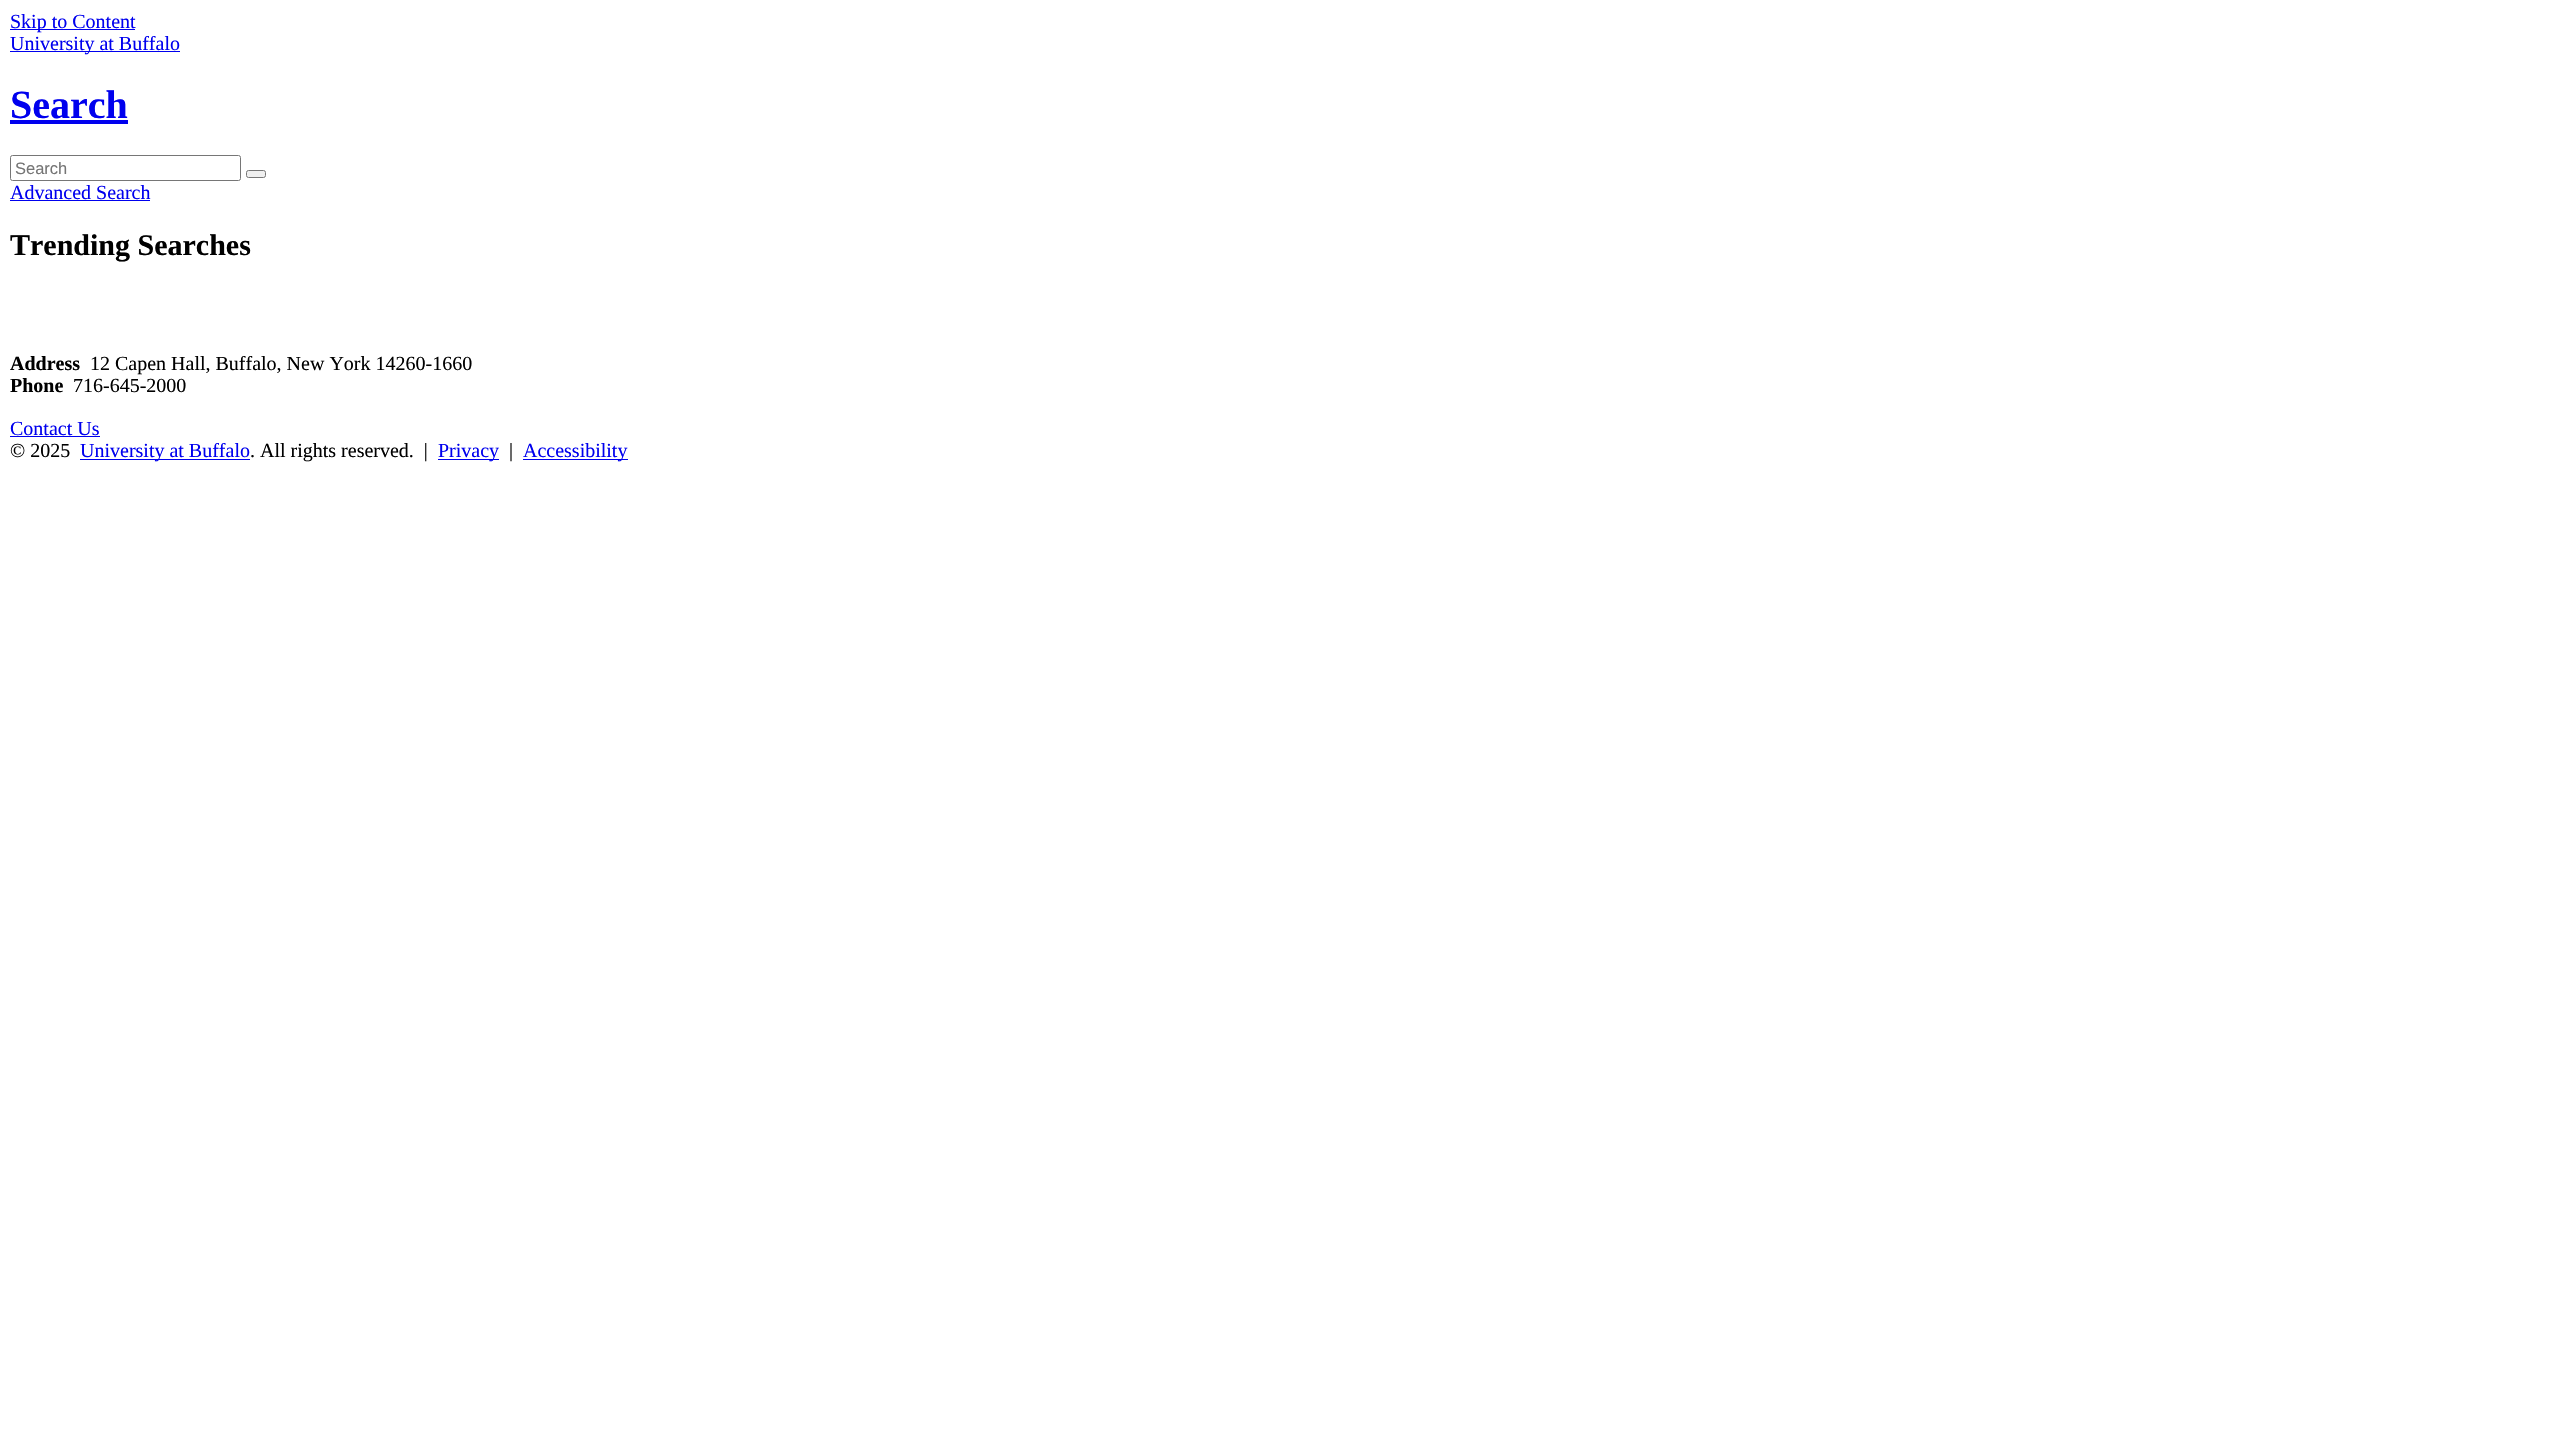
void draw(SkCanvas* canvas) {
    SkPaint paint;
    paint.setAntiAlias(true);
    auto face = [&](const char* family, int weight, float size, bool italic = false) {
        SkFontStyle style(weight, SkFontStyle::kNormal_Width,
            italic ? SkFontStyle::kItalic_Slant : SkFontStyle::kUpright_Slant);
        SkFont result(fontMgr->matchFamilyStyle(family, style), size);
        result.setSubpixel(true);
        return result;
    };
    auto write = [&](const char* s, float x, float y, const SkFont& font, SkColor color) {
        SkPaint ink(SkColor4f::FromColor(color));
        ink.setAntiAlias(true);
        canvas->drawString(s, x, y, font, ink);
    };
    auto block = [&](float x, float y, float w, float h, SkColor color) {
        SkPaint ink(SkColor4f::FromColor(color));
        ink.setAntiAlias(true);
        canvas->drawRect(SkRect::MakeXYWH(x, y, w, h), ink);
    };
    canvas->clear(SK_ColorWHITE);
    block(10, 29, 125, 1, SkColorSetRGB(0, 0, 238));
    auto kFont1 = face("Liberation Serif", 400, 20);
    write("Skip to Content", 10, 28, kFont1, SkColorSetRGB(0, 0, 238));
    block(10, 51, 170, 1, SkColorSetRGB(0, 0, 238));
    write("University at Buffalo", 10, 50, kFont1, SkColorSetRGB(0, 0, 238));
    auto kFont2 = face("Liberation Serif", 700, 40);
    write("Search", 10, 118, kFont2, SkColorSetRGB(0, 0, 238));
    block(10, 120, 118, 4, SkColorSetRGB(0, 0, 238));
    paint.setStyle(SkPaint::kStroke_Style);
    paint.setStrokeWidth(1);
    paint.setColor(SkColorSetRGB(118, 118, 118));
    canvas->drawRoundRect(SkRect::MakeXYWH(10.5f, 155.5f, 230, 25), 2, 2, paint);
    auto kFont3 = face("Liberation Sans", 400, 16.5f);
    write("Search", 15, 174, kFont3, SkColorSetRGB(117, 117, 117));
    paint.setStyle(SkPaint::kFill_Style);
    paint.setColor(SkColorSetRGB(239, 239, 239));
    canvas->drawRoundRect(SkRect::MakeXYWH(246.5f, 170.5f, 19, 7), 2, 2, paint);
    paint.setStyle(SkPaint::kStroke_Style);
    paint.setColor(SkColorSetRGB(118, 118, 118));
    canvas->drawRoundRect(SkRect::MakeXYWH(246.5f, 170.5f, 19, 7), 2, 2, paint);
    write("Advanced Search", 10, 199, kFont1, SkColorSetRGB(0, 0, 238));
    block(10, 200, 140, 1, SkColorSetRGB(0, 0, 238));
    auto kFont4 = face("Liberation Serif", 700, 30);
    write("Trending Searches", 10, 255, kFont4, SK_ColorBLACK);
    auto kFont5 = face("Liberation Serif", 700, 20);
    write("Address", 10, 370, kFont5, SK_ColorBLACK);
    write("12 Capen Hall, Buffalo, New York 14260-1660", 90, 370, kFont1, SK_ColorBLACK);
    write("Phone", 10, 392, kFont5, SK_ColorBLACK);
    write("716-645-2000", 73, 392, kFont1, SK_ColorBLACK);
    write("Contact Us", 10, 435, kFont1, SkColorSetRGB(0, 0, 238));
    block(10, 436, 90, 1, SkColorSetRGB(0, 0, 238));
    write("© 2025", 10, 457, kFont1, SK_ColorBLACK);
    block(80, 459, 170, 1, SkColorSetRGB(0, 0, 238));
    write("University at Buffalo", 80, 457, kFont1, SkColorSetRGB(0, 0, 238));
    write(". All rights reserved.  |", 250, 457, kFont1, SK_ColorBLACK);
    block(438, 459, 61, 1, SkColorSetRGB(0, 0, 238));
    write("Privacy", 438, 457, kFont1, SkColorSetRGB(0, 0, 238));
    write("|", 509, 457, kFont1, SK_ColorBLACK);
    block(523, 459, 105, 1, SkColorSetRGB(0, 0, 238));
    write("Accessibility", 523, 457, kFont1, SkColorSetRGB(0, 0, 238));
}
